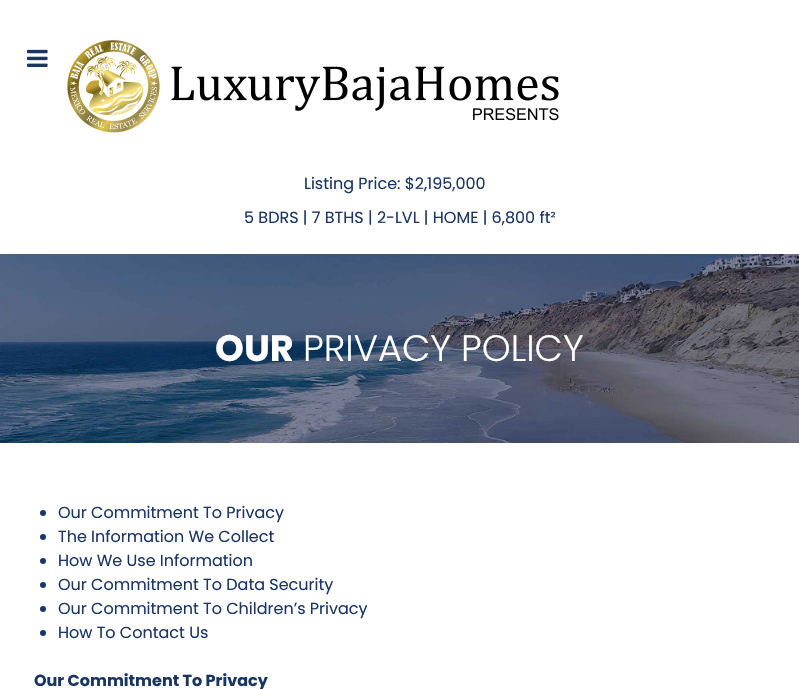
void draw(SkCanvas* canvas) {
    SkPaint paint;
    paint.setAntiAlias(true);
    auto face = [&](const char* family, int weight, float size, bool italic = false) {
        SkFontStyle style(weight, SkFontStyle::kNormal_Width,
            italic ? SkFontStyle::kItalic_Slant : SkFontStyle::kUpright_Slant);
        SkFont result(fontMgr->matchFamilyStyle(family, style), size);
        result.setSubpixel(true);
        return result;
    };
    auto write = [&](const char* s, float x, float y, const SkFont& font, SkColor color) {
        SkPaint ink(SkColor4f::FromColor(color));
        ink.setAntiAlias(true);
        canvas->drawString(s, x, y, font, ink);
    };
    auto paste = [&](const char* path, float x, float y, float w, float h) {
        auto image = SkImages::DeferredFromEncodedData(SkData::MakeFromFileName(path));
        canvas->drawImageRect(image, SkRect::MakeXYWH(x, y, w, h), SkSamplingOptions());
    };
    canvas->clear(SK_ColorWHITE);
    paste("pic1.png", 27, 49, 21, 18);
    paste("pic2.png", 67, 40, 492, 93);
    auto kFont1 = face("Poppins", 400, 16);
    write("Listing Price: $2,195,000", 304, 189, kFont1, SkColorSetRGB(25, 53, 100));
    write("5 BDRS | 7 BTHS | 2-LVL | HOME | 6,800 ft²", 244, 223, kFont1, SkColorSetRGB(25, 53, 100));
    paste("pic3.png", 0, 254, 799, 189);
    auto kFont2 = face("Poppins", 700, 36.75f);
    write("OUR", 215, 361, kFont2, SK_ColorWHITE);
    auto kFont3 = face("Poppins", 300, 36.75f);
    write("PRIVACY POLICY", 303, 361, kFont3, SK_ColorWHITE);
    paint.setColor(SkColorSetRGB(25, 53, 100));
    canvas->drawCircle(43, 513, 3, paint);
    write("Our Commitment To Privacy", 58, 518, kFont1, SkColorSetRGB(25, 53, 100));
    canvas->drawCircle(43, 537, 3, paint);
    write("The Information We Collect", 58, 542, kFont1, SkColorSetRGB(25, 53, 100));
    canvas->drawCircle(43, 561, 3, paint);
    write("How We Use Information", 58, 566, kFont1, SkColorSetRGB(25, 53, 100));
    canvas->drawCircle(43, 585, 3, paint);
    write("Our Commitment To Data Security", 58, 590, kFont1, SkColorSetRGB(25, 53, 100));
    canvas->drawCircle(43, 609, 3, paint);
    write("Our Commitment To Children’s Privacy", 58, 614, kFont1, SkColorSetRGB(25, 53, 100));
    canvas->drawCircle(43, 633, 3, paint);
    write("How To Contact Us", 58, 638, kFont1, SkColorSetRGB(25, 53, 100));
    auto kFont4 = face("Poppins", 700, 16);
    write("Our Commitment To Privacy", 34, 686, kFont4, SkColorSetRGB(25, 53, 100));
}
